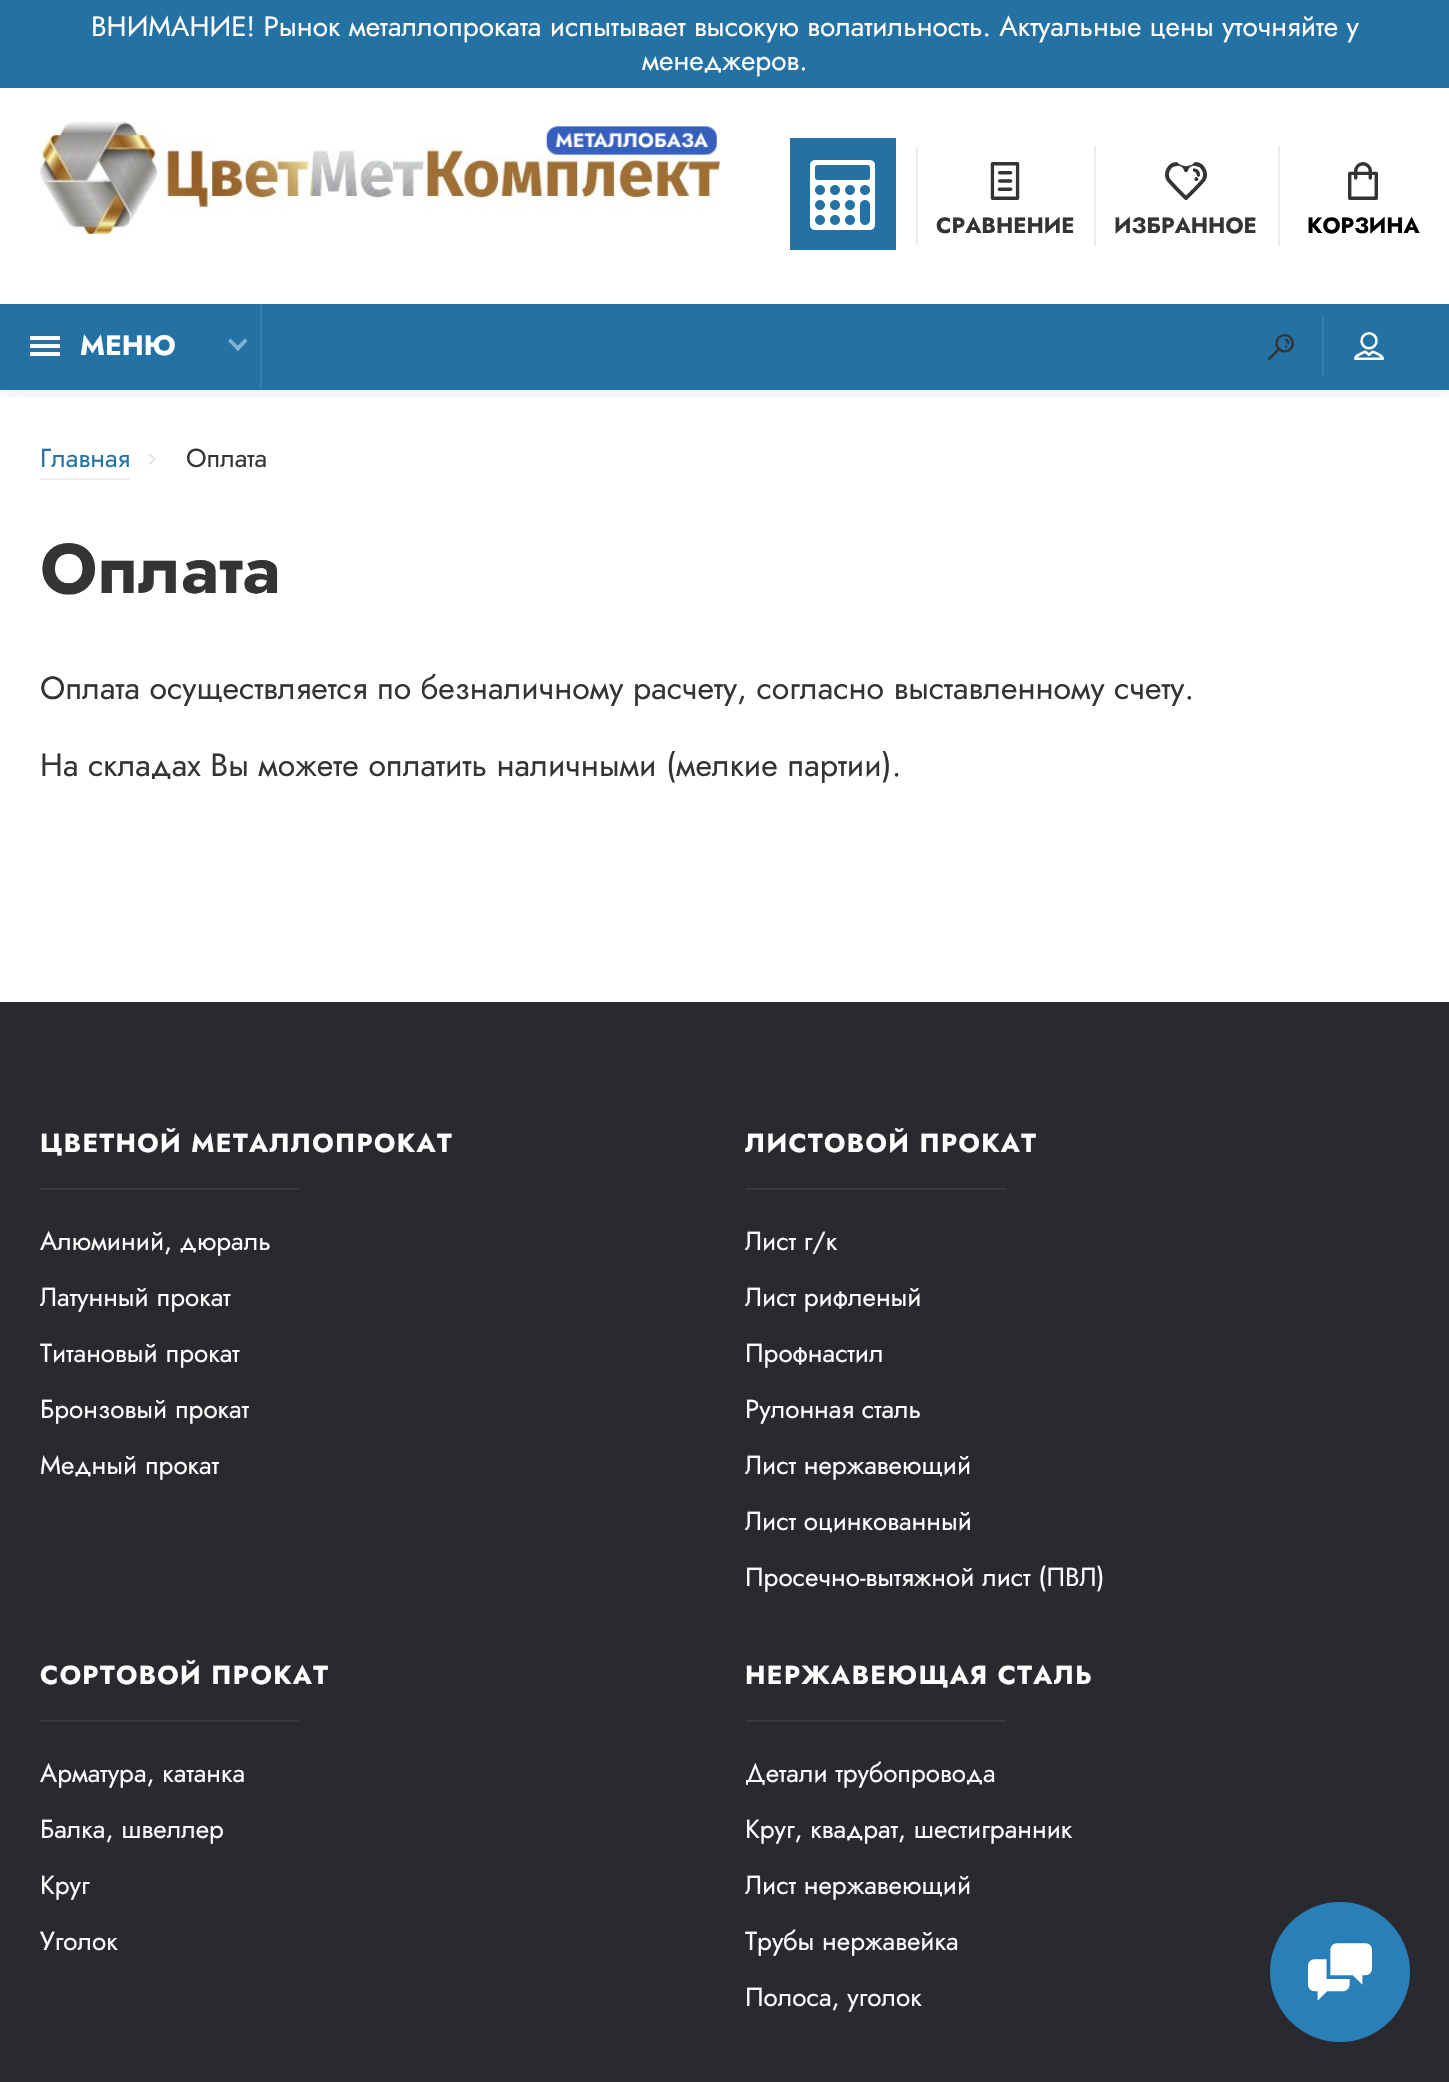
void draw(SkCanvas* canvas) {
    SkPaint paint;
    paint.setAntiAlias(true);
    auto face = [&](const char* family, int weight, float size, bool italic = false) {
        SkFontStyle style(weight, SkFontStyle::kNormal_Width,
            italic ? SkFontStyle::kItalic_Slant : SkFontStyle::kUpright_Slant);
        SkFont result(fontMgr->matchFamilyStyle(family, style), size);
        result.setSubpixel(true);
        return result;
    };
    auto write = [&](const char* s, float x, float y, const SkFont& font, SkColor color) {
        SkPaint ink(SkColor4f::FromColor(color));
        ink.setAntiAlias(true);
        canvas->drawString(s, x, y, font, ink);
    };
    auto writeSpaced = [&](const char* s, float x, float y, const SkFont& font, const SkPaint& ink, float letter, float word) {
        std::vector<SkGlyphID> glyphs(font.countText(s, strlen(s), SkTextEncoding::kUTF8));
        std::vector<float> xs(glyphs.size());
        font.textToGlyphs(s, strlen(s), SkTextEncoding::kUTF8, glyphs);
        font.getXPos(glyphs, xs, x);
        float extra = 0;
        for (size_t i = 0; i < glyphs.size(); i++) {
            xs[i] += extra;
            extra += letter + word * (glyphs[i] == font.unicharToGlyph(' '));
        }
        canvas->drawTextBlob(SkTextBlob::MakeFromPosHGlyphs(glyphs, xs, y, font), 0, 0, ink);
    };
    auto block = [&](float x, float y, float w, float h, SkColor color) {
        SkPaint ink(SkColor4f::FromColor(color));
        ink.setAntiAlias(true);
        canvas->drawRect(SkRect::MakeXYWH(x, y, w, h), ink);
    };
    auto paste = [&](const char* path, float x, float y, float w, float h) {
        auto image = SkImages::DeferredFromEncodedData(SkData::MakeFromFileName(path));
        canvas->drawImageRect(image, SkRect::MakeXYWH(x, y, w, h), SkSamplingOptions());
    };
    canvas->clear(SK_ColorWHITE);
    canvas->save();
    canvas->clipRect(SkRect::MakeXYWH(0, 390, 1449, 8));
    paint.setColor(SkColorSetARGB(26, 0, 0, 0));
    paint.setMaskFilter(SkMaskFilter::MakeBlur(kNormal_SkBlurStyle, 10));
    canvas->drawRect(SkRect::MakeXYWH(0, 0, 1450, 390), paint);
    paint.setMaskFilter(nullptr);
    canvas->restore();
    block(0, 0, 1449, 88, SkColorSetRGB(36, 113, 163));
    auto kFont1 = face("Jost", 400, 28);
    write("ВНИМАНИЕ! Рынок металлопроката испытывает высокую волатильность. Актуальные цены уточняйте у", 91, 36, kFont1, SK_ColorWHITE);
    write("менеджеров.", 642, 70, kFont1, SK_ColorWHITE);
    paste("pic1.png", 40, 122, 680, 112);
    block(790, 138, 106, 112, SkColorSetRGB(36, 113, 163));
    paste("pic2.png", 810, 160, 65, 70);
    block(916, 146, 2, 100, SkColorSetRGB(234, 239, 245));
    paste("pic3.png", 990, 162, 30, 38);
    auto kFont2 = face("Jost", 700, 22);
    write("СРАВНЕНИЕ", 936, 233, kFont2, SkColorSetRGB(52, 52, 52));
    block(1094, 146, 2, 100, SkColorSetRGB(234, 239, 245));
    paste("pic4.png", 1164, 162, 43, 38);
    write("ИЗБРАННОЕ", 1114, 233, kFont2, SkColorSetRGB(52, 52, 52));
    block(1278, 146, 2, 100, SkColorSetRGB(234, 239, 245));
    paste("pic5.png", 1348, 162, 30, 38);
    write("КОРЗИНА", 1307, 233, kFont2, SK_ColorBLACK);
    block(0, 304, 1449, 86, SkColorSetRGB(36, 113, 163));
    block(260, 304, 2, 86, SkColorSetRGB(58, 127, 172));
    paste("pic6.png", 30, 336, 30, 20);
    auto kFont3 = face("Jost", 700, 28);
    write("МЕНЮ", 80, 355, kFont3, SK_ColorWHITE);
    paint.setColor(SkColorSetRGB(127, 179, 213));
    canvas->drawPath(SkPathBuilder().moveTo(245, 338.5f).lineTo(247.5f, 341).lineTo(238, 351).lineTo(235, 348.5f).close().detach(), paint);
    canvas->drawPath(SkPathBuilder().moveTo(230.5f, 338.5f).lineTo(240.5f, 348.5f).lineTo(238, 351).lineTo(228, 341).close().detach(), paint);
    paste("pic7.png", 1268, 334, 26, 26);
    block(1322, 316, 2, 60, SkColorSetRGB(58, 127, 172));
    paste("pic8.png", 1354, 332, 30, 28);
    auto kFont4 = face("Jost", 400, 26);
    write("Главная", 40, 467, kFont4, SkColorSetRGB(36, 113, 163));
    block(40, 478, 90, 2, SkColorSetRGB(233, 241, 246));
    paint.setColor(SkColorSetRGB(226, 226, 226));
    canvas->drawPath(SkPathBuilder().moveTo(148.5f, 455).lineTo(150, 453.5f).lineTo(156, 459).lineTo(154.5f, 460.5f).close().detach(), paint);
    canvas->drawPath(SkPathBuilder().moveTo(148.5f, 463.5f).lineTo(154.5f, 458).lineTo(156, 459).lineTo(150, 465).close().detach(), paint);
    write("Оплата", 186, 467, kFont4, SkColorSetRGB(52, 52, 52));
    auto kFont5 = face("Jost", 700, 70);
    write("Оплата", 40, 593, kFont5, SkColorSetRGB(52, 52, 52));
    auto kFont6 = face("Jost", 400, 32);
    write("Оплата осуществляется по безналичному расчету, согласно выставленному счету.", 40, 699, kFont6, SkColorSetRGB(52, 52, 52));
    write("На складах Вы можете оплатить наличными (мелкие партии).", 40, 776, kFont6, SkColorSetRGB(52, 52, 52));
    block(0, 1002, 1449, 1080, SkColorSetRGB(41, 42, 48));
    auto kFont7 = face("Jost", 700, 26);
    paint.setColor(SK_ColorWHITE);
    writeSpaced("ЦВЕТНОЙ МЕТАЛЛОПРОКАТ", 40, 1152, kFont7, paint, 1.4f, 0);
    block(40, 1188, 260, 2, SkColorSetRGB(54, 55, 66));
    write("Алюминий, дюраль", 40, 1250, kFont4, SK_ColorWHITE);
    write("Латунный прокат", 40, 1306, kFont4, SK_ColorWHITE);
    write("Титановый прокат", 40, 1362, kFont4, SK_ColorWHITE);
    write("Бронзовый прокат", 40, 1418, kFont4, SK_ColorWHITE);
    write("Медный прокат", 40, 1474, kFont4, SK_ColorWHITE);
    writeSpaced("ЛИСТОВОЙ ПРОКАТ", 745, 1152, kFont7, paint, 1.4f, 0);
    block(746, 1188, 260, 2, SkColorSetRGB(54, 55, 66));
    write("Лист г/к", 745, 1250, kFont4, SK_ColorWHITE);
    write("Лист рифленый", 745, 1306, kFont4, SK_ColorWHITE);
    write("Профнастил", 745, 1362, kFont4, SK_ColorWHITE);
    write("Рулонная сталь", 745, 1418, kFont4, SK_ColorWHITE);
    write("Лист нержавеющий", 745, 1474, kFont4, SK_ColorWHITE);
    write("Лист оцинкованный", 745, 1530, kFont4, SK_ColorWHITE);
    write("Просечно-вытяжной лист (ПВЛ)", 745, 1586, kFont4, SK_ColorWHITE);
    writeSpaced("СОРТОВОЙ ПРОКАТ", 40, 1684, kFont7, paint, 1.4f, 0);
    block(40, 1720, 260, 2, SkColorSetRGB(54, 55, 66));
    write("Арматура, катанка", 40, 1782, kFont4, SK_ColorWHITE);
    write("Балка, швеллер", 40, 1838, kFont4, SK_ColorWHITE);
    write("Круг", 40, 1894, kFont4, SK_ColorWHITE);
    write("Уголок", 40, 1950, kFont4, SK_ColorWHITE);
    writeSpaced("НЕРЖАВЕЮЩАЯ СТАЛЬ", 745, 1684, kFont7, paint, 1.4f, 0);
    block(746, 1720, 260, 2, SkColorSetRGB(54, 55, 66));
    write("Детали трубопровода", 745, 1782, kFont4, SK_ColorWHITE);
    write("Круг, квадрат, шестигранник", 745, 1838, kFont4, SK_ColorWHITE);
    write("Лист нержавеющий", 745, 1894, kFont4, SK_ColorWHITE);
    write("Трубы нержавейка", 745, 1950, kFont4, SK_ColorWHITE);
    write("Полоса, уголок", 745, 2006, kFont4, SK_ColorWHITE);
    paint.setColor(SkColorSetRGB(41, 128, 185));
    canvas->drawCircle(1340, 1972, 70, paint);
    paste("pic9.png", 1308, 1943, 64, 58);
}
